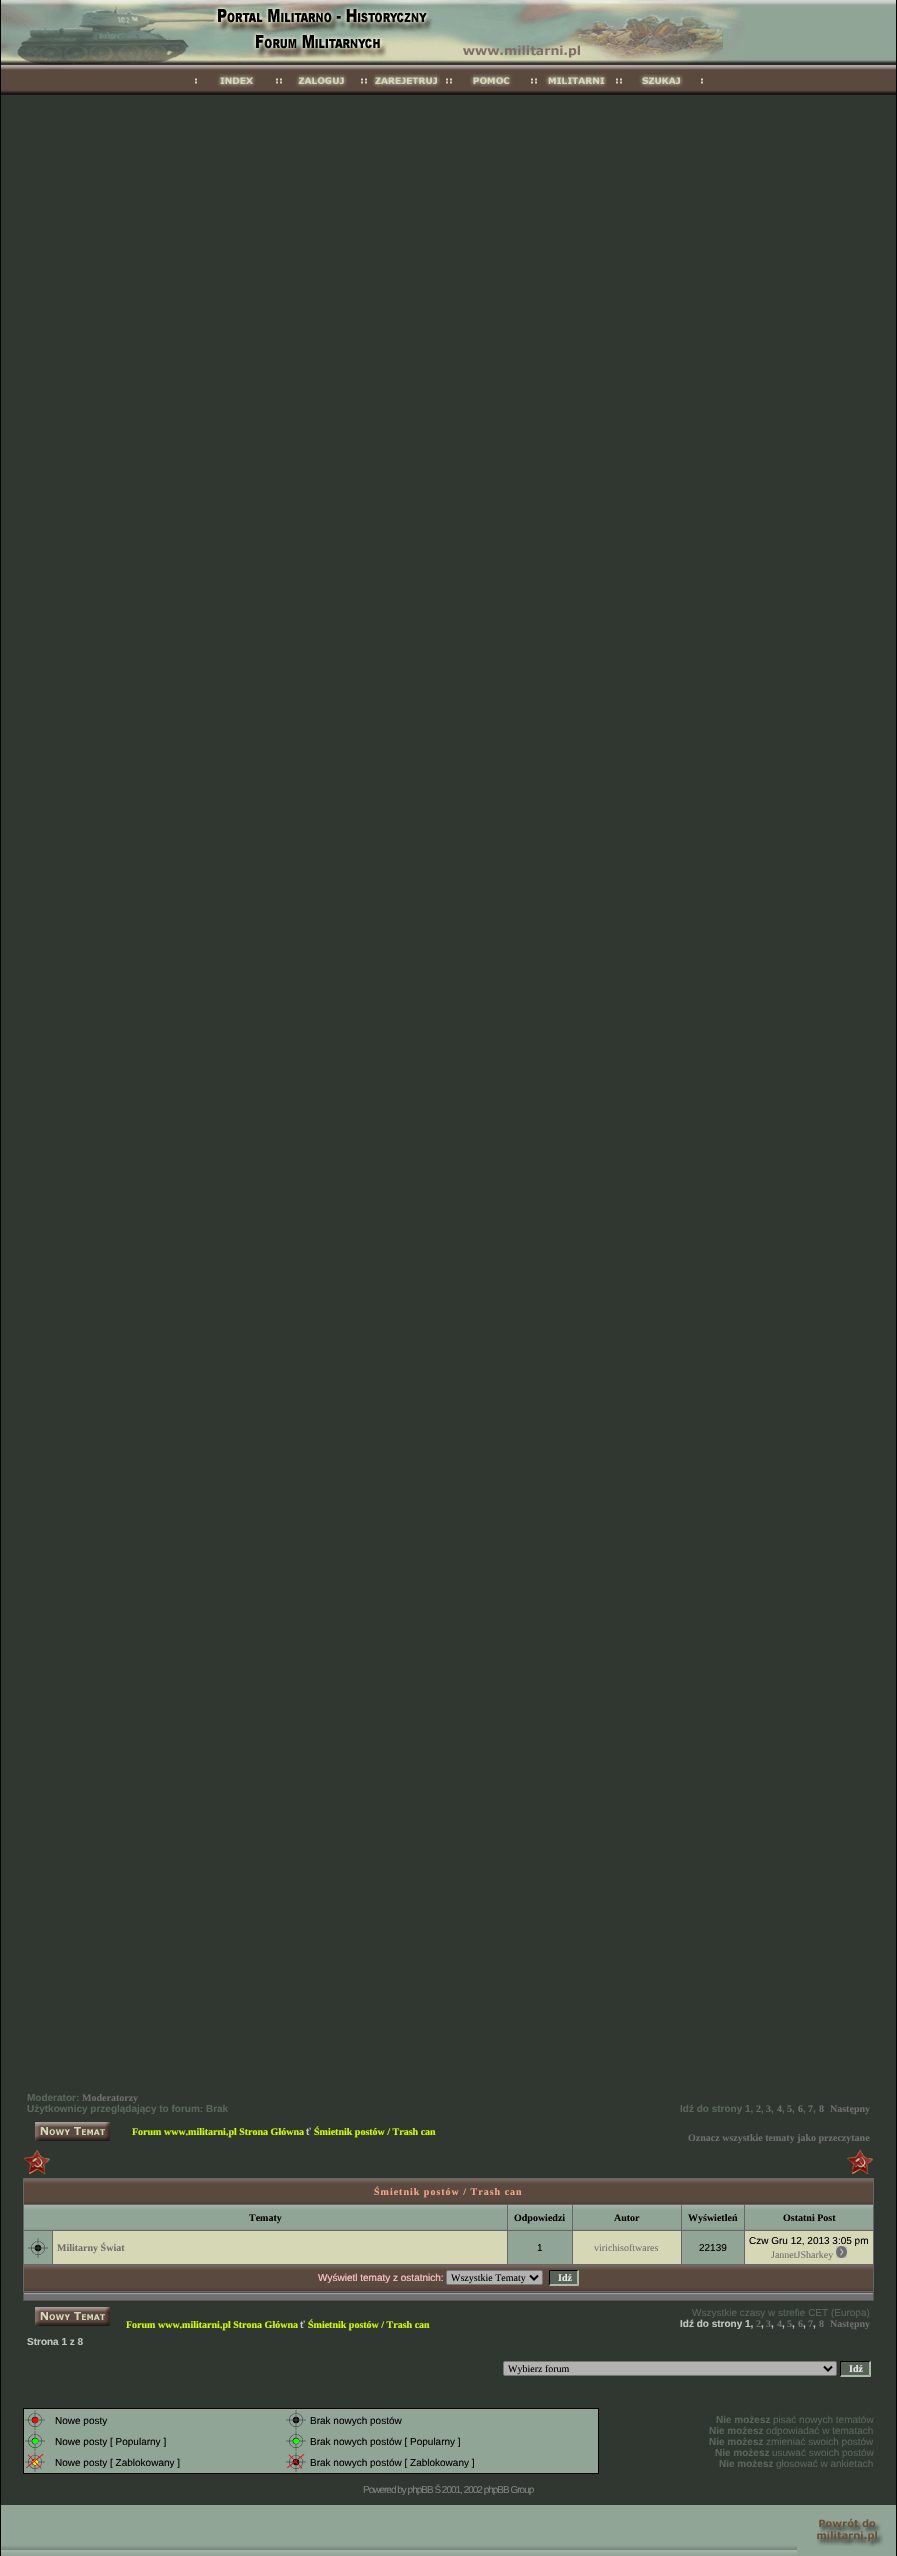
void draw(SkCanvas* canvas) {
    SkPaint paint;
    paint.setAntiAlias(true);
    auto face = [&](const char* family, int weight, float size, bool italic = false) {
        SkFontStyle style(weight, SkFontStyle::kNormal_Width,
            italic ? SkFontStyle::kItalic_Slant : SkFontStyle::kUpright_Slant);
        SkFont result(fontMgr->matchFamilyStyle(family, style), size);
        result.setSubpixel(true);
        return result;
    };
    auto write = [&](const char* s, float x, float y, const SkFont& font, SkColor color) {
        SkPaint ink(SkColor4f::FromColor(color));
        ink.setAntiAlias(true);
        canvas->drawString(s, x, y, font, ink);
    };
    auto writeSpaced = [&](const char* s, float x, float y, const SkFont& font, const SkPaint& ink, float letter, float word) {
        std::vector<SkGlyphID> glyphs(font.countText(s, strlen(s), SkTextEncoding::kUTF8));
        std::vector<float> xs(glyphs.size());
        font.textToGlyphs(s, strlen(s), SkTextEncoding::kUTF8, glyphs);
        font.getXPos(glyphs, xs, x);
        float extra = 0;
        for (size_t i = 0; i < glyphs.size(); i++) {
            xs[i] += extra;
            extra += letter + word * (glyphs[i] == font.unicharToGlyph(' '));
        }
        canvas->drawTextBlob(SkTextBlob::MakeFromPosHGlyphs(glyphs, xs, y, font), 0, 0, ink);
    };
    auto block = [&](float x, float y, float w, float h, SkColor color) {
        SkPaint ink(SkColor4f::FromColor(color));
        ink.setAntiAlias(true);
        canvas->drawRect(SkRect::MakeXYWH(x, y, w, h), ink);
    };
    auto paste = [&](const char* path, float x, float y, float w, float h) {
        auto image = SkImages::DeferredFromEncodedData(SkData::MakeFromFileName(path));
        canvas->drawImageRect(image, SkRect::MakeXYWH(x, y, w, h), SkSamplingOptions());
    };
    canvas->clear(SkColorSetRGB(48, 55, 48));
    block(896, 0, 1, 2556, SK_ColorBLACK);
    block(0, 0, 1, 2556, SK_ColorBLACK);
    paste("pic1.png", 745, 0, 151, 65);
    paste("pic2.png", 1, 0, 744, 65);
    paste("pic3.png", 1, 65, 895, 30);
    paste("pic4.png", 195, 74, 83, 14);
    paste("pic5.png", 280, 74, 83, 14);
    paste("pic6.png", 365, 74, 83, 14);
    paste("pic7.png", 450, 74, 83, 13);
    paste("pic8.png", 535, 74, 83, 14);
    paste("pic9.png", 620, 74, 83, 14);
    auto kFont1 = face("Liberation Sans", 700, 10);
    write("Moderator:", 27, 2101, kFont1, SkColorSetRGB(89, 102, 89));
    auto kFont2 = face("Liberation Serif", 700, 10);
    write("Moderatorzy", 82, 2101, kFont2, SkColorSetRGB(111, 111, 111));
    write("Użytkownicy przeglądający to forum: Brak", 27, 2112, kFont1, SkColorSetRGB(89, 102, 89));
    write("Idź do strony 1,", 680, 2112, kFont1, SkColorSetRGB(89, 102, 89));
    write("2", 756, 2112, kFont2, SkColorSetRGB(111, 111, 111));
    write(",", 761, 2112, kFont1, SkColorSetRGB(89, 102, 89));
    write("3", 766, 2112, kFont2, SkColorSetRGB(111, 111, 111));
    write(",", 771, 2112, kFont1, SkColorSetRGB(89, 102, 89));
    write("4", 777, 2112, kFont2, SkColorSetRGB(111, 111, 111));
    write(",", 782, 2112, kFont1, SkColorSetRGB(89, 102, 89));
    write("5", 787, 2112, kFont2, SkColorSetRGB(111, 111, 111));
    write(",", 792, 2112, kFont1, SkColorSetRGB(89, 102, 89));
    write("6", 798, 2112, kFont2, SkColorSetRGB(111, 111, 111));
    write(",", 803, 2112, kFont1, SkColorSetRGB(89, 102, 89));
    write("7", 808, 2112, kFont2, SkColorSetRGB(111, 111, 111));
    write(",", 813, 2112, kFont1, SkColorSetRGB(89, 102, 89));
    write("8", 819, 2112, kFont2, SkColorSetRGB(111, 111, 111));
    write("Następny", 830, 2112, kFont2, SkColorSetRGB(111, 111, 111));
    paste("pic10.png", 35, 2122, 75, 19);
    write("Forum www.militarni.pl Strona Główna", 132, 2135, kFont2, SkColorSetRGB(204, 255, 0));
    write("ť", 306, 2135, kFont1, SkColorSetRGB(191, 198, 191));
    write("Śmietnik postów / Trash can", 314, 2135, kFont2, SkColorSetRGB(204, 255, 0));
    write("Oznacz wszystkie tematy jako przeczytane", 688, 2141, kFont2, SkColorSetRGB(111, 111, 111));
    paste("pic11.png", 24, 2150, 26, 25);
    paste("pic11.png", 847, 2150, 26, 25);
    block(23, 2178, 851, 114, SkColorSetRGB(102, 102, 102));
    paste("pic12.png", 24, 2179, 849, 25);
    paint.setColor(SkColorSetRGB(245, 165, 140));
    writeSpaced("Śmietnik postów / Trash can", 374, 2195, kFont2, paint, 1, 0);
    paste("pic13.png", 24, 2205, 483, 25);
    write("Tematy", 249, 2221, kFont2, SK_ColorBLACK);
    paste("pic14.png", 508, 2205, 64, 25);
    write("Odpowiedzi", 514, 2221, kFont2, SK_ColorBLACK);
    paste("pic15.png", 573, 2205, 108, 25);
    write("Autor", 614, 2221, kFont2, SK_ColorBLACK);
    paste("pic16.png", 682, 2205, 62, 25);
    write("Wyświetleń", 688, 2221, kFont2, SK_ColorBLACK);
    paste("pic17.png", 745, 2205, 128, 25);
    write("Ostatni Post", 783, 2221, kFont2, SK_ColorBLACK);
    block(24, 2231, 28, 33, SkColorSetRGB(145, 165, 151));
    paste("pic18.png", 28, 2238, 20, 20);
    block(53, 2231, 454, 33, SkColorSetRGB(214, 215, 181));
    write("Militarny Świat", 57, 2251, kFont2, SkColorSetRGB(111, 111, 111));
    block(508, 2231, 64, 33, SkColorSetRGB(145, 165, 151));
    auto kFont3 = face("Liberation Sans", 400, 10);
    write("1", 537, 2251, kFont3, SK_ColorBLACK);
    block(573, 2231, 108, 33, SkColorSetRGB(214, 215, 181));
    auto kFont4 = face("Liberation Serif", 400, 10);
    write("virichisoftwares", 594, 2251, kFont4, SkColorSetRGB(111, 111, 111));
    block(682, 2231, 62, 33, SkColorSetRGB(145, 165, 151));
    write("22139", 699, 2251, kFont3, SK_ColorBLACK);
    block(745, 2231, 128, 33, SkColorSetRGB(214, 215, 181));
    write("Czw Gru 12, 2013 3:05 pm", 749, 2244, kFont3, SK_ColorBLACK);
    write("JannetJSharkey", 771, 2258, kFont4, SkColorSetRGB(111, 111, 111));
    paste("pic19.png", 836, 2246, 11, 12);
    paste("pic20.png", 24, 2265, 849, 26);
    write("Wyświetl tematy z ostatnich:", 318, 2281, kFont3, SkColorSetRGB(255, 198, 198));
    paint.setColor(SkColorSetRGB(178, 178, 178));
    canvas->drawRoundRect(SkRect::MakeXYWH(446.5f, 2270.5f, 96, 14), 1.5f, 1.5f, paint);
    paint.setStyle(SkPaint::kStroke_Style);
    paint.setStrokeWidth(1);
    paint.setColor(SkColorSetRGB(118, 118, 118));
    canvas->drawRoundRect(SkRect::MakeXYWH(446.5f, 2270.5f, 96, 14), 1.5f, 1.5f, paint);
    paint.setStrokeWidth(2);
    paint.setColor(SK_ColorBLACK);
    canvas->drawPath(SkPathBuilder().moveTo(530, 2275.5f).lineTo(534, 2279.5f).lineTo(538, 2275.5f).detach(), paint);
    write("Wszystkie Tematy", 451, 2281, kFont4, SK_ColorBLACK);
    block(550, 2271, 27, 13, SkColorSetRGB(86, 99, 86));
    paint.setStyle(SkPaint::kFill_Style);
    canvas->drawPath(SkPathBuilder().moveTo(549, 2270).lineTo(579, 2270).lineTo(577, 2271).lineTo(550, 2271).close().detach(), paint);
    paint.setColor(SkColorSetRGB(173, 184, 173));
    canvas->drawPath(SkPathBuilder().moveTo(579, 2270).lineTo(579, 2286).lineTo(577, 2284).lineTo(577, 2271).close().detach(), paint);
    canvas->drawPath(SkPathBuilder().moveTo(579, 2286).lineTo(549, 2286).lineTo(550, 2284).lineTo(577, 2284).close().detach(), paint);
    paint.setColor(SK_ColorBLACK);
    canvas->drawPath(SkPathBuilder().moveTo(549, 2286).lineTo(549, 2270).lineTo(550, 2271).lineTo(550, 2284).close().detach(), paint);
    write("Idź", 558, 2281, kFont2, SkColorSetRGB(234, 234, 234));
    paste("pic21.png", 23, 2292, 28, 9);
    paste("pic22.png", 51, 2292, 795, 9);
    paste("pic23.png", 846, 2292, 28, 9);
    paste("pic10.png", 35, 2307, 75, 19);
    write("Forum www.militarni.pl Strona Główna", 126, 2328, kFont2, SkColorSetRGB(204, 255, 0));
    write("ť", 300, 2328, kFont1, SkColorSetRGB(191, 198, 191));
    write("Śmietnik postów / Trash can", 308, 2328, kFont2, SkColorSetRGB(204, 255, 0));
    write("Wszystkie czasy w strefie CET (Europa)", 692, 2316, kFont3, SkColorSetRGB(89, 102, 89));
    write("Idź do strony 1,", 680, 2327, kFont1, SkColorSetRGB(191, 198, 191));
    write("2", 756, 2327, kFont2, SkColorSetRGB(111, 111, 111));
    write(",", 761, 2327, kFont1, SkColorSetRGB(191, 198, 191));
    write("3", 766, 2327, kFont2, SkColorSetRGB(111, 111, 111));
    write(",", 771, 2327, kFont1, SkColorSetRGB(191, 198, 191));
    write("4", 777, 2327, kFont2, SkColorSetRGB(111, 111, 111));
    write(",", 782, 2327, kFont1, SkColorSetRGB(191, 198, 191));
    write("5", 787, 2327, kFont2, SkColorSetRGB(111, 111, 111));
    write(",", 792, 2327, kFont1, SkColorSetRGB(191, 198, 191));
    write("6", 798, 2327, kFont2, SkColorSetRGB(111, 111, 111));
    write(",", 803, 2327, kFont1, SkColorSetRGB(191, 198, 191));
    write("7", 808, 2327, kFont2, SkColorSetRGB(111, 111, 111));
    write(",", 813, 2327, kFont1, SkColorSetRGB(191, 198, 191));
    write("8", 819, 2327, kFont2, SkColorSetRGB(111, 111, 111));
    write("Następny", 830, 2327, kFont2, SkColorSetRGB(111, 111, 111));
    write("Strona 1 z 8", 27, 2345, kFont1, SkColorSetRGB(191, 198, 191));
    paint.setColor(SkColorSetRGB(178, 178, 178));
    canvas->drawRoundRect(SkRect::MakeXYWH(503.5f, 2361.5f, 333, 14), 1.5f, 1.5f, paint);
    paint.setStyle(SkPaint::kStroke_Style);
    paint.setStrokeWidth(1);
    paint.setColor(SkColorSetRGB(118, 118, 118));
    canvas->drawRoundRect(SkRect::MakeXYWH(503.5f, 2361.5f, 333, 14), 1.5f, 1.5f, paint);
    paint.setStrokeWidth(2);
    paint.setColor(SK_ColorBLACK);
    canvas->drawPath(SkPathBuilder().moveTo(824, 2366.5f).lineTo(828, 2370.5f).lineTo(832, 2366.5f).detach(), paint);
    write("Wybierz forum", 508, 2372, kFont4, SK_ColorBLACK);
    block(841, 2362, 28, 13, SkColorSetRGB(86, 99, 86));
    paint.setStyle(SkPaint::kFill_Style);
    canvas->drawPath(SkPathBuilder().moveTo(840, 2361).lineTo(871, 2361).lineTo(869, 2362).lineTo(841, 2362).close().detach(), paint);
    paint.setColor(SkColorSetRGB(173, 184, 173));
    canvas->drawPath(SkPathBuilder().moveTo(871, 2361).lineTo(871, 2377).lineTo(869, 2375).lineTo(869, 2362).close().detach(), paint);
    canvas->drawPath(SkPathBuilder().moveTo(871, 2377).lineTo(840, 2377).lineTo(841, 2375).lineTo(869, 2375).close().detach(), paint);
    paint.setColor(SK_ColorBLACK);
    canvas->drawPath(SkPathBuilder().moveTo(840, 2377).lineTo(840, 2361).lineTo(841, 2362).lineTo(841, 2375).close().detach(), paint);
    write("Idź", 849, 2372, kFont2, SkColorSetRGB(234, 234, 234));
    paint.setColor(SkColorSetRGB(145, 165, 151));
    canvas->drawRect(SkRect::MakeXYWH(23.5f, 2408.5f, 575, 65), paint);
    paint.setStyle(SkPaint::kStroke_Style);
    paint.setStrokeWidth(1);
    paint.setColor(SK_ColorBLACK);
    canvas->drawRect(SkRect::MakeXYWH(23.5f, 2408.5f, 575, 65), paint);
    paste("pic24.png", 25, 2410, 20, 20);
    write("Nowe posty", 55, 2424, kFont3, SK_ColorBLACK);
    paste("pic18.png", 286, 2410, 20, 20);
    write("Brak nowych postów", 310, 2424, kFont3, SK_ColorBLACK);
    paste("pic25.png", 25, 2431, 20, 20);
    write("Nowe posty [ Popularny ]", 55, 2445, kFont3, SK_ColorBLACK);
    paste("pic26.png", 286, 2431, 20, 20);
    write("Brak nowych postów [ Popularny ]", 310, 2445, kFont3, SK_ColorBLACK);
    paste("pic27.png", 25, 2452, 20, 20);
    write("Nowe posty [ Zablokowany ]", 55, 2466, kFont3, SK_ColorBLACK);
    paste("pic28.png", 286, 2452, 20, 20);
    write("Brak nowych postów [ Zablokowany ]", 310, 2466, kFont3, SK_ColorBLACK);
    write("Nie możesz", 716, 2423, kFont1, SkColorSetRGB(89, 102, 89));
    write("pisać nowych tematów", 773, 2423, kFont3, SkColorSetRGB(89, 102, 89));
    write("Nie możesz", 709, 2434, kFont1, SkColorSetRGB(89, 102, 89));
    write("odpowiadać w tematach", 766, 2434, kFont3, SkColorSetRGB(89, 102, 89));
    write("Nie możesz", 709, 2445, kFont1, SkColorSetRGB(89, 102, 89));
    write("zmieniać swoich postów", 766, 2445, kFont3, SkColorSetRGB(89, 102, 89));
    write("Nie możesz", 715, 2456, kFont1, SkColorSetRGB(89, 102, 89));
    write("usuwać swoich postów", 772, 2456, kFont3, SkColorSetRGB(89, 102, 89));
    write("Nie możesz", 719, 2467, kFont1, SkColorSetRGB(89, 102, 89));
    write("głosować w ankietach", 776, 2467, kFont3, SkColorSetRGB(89, 102, 89));
    paint.setStyle(SkPaint::kFill_Style);
    paint.setColor(SkColorSetRGB(128, 128, 128));
    writeSpaced("Powered by phpBB Š 2001, 2002 phpBB Group", 363, 2493, kFont3, paint, -1, 0);
    paste("pic29.png", 1, 2505, 895, 51);
    paste("pic30.png", 797, 2518, 99, 36);
}
